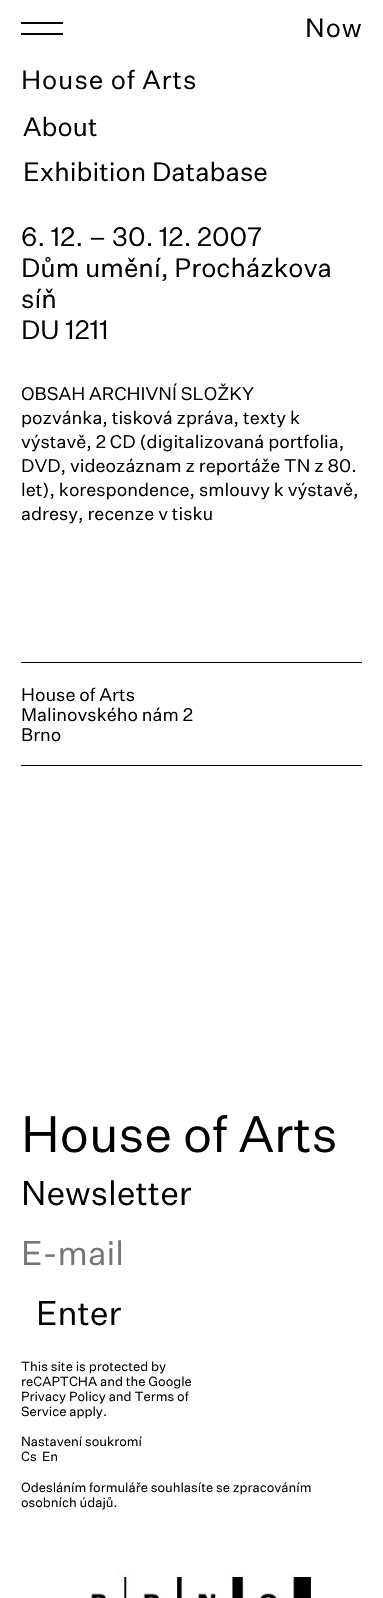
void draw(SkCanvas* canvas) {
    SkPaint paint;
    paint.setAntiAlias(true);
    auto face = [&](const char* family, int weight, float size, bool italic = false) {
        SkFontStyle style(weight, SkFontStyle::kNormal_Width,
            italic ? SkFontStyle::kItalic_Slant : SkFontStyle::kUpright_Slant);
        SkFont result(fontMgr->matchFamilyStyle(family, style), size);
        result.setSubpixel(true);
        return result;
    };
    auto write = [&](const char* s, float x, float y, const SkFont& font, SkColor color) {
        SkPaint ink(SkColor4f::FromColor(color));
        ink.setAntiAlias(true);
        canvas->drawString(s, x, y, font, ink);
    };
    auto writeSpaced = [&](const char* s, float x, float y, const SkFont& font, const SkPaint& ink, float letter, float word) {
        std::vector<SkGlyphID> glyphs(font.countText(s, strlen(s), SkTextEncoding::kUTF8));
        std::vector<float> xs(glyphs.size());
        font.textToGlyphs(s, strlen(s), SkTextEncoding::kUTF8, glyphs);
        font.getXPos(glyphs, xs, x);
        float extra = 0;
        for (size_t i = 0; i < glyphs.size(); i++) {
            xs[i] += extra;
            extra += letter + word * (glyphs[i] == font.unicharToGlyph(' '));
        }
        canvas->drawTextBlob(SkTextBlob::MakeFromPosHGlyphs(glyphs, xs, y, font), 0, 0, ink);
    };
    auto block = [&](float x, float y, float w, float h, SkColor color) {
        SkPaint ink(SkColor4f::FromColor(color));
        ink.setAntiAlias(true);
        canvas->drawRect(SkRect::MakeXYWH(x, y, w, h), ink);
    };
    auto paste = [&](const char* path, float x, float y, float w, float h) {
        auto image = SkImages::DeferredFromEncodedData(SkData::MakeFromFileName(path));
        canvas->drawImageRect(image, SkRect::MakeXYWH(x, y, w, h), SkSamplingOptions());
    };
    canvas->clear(SK_ColorWHITE);
    auto kFont1 = face("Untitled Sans", 400, 26);
    paint.setColor(SK_ColorBLACK);
    writeSpaced("Now", 305, 37, kFont1, paint, 0.9f, 0);
    block(21, 22, 42, 2, SK_ColorBLACK);
    block(21, 33, 42, 2, SK_ColorBLACK);
    writeSpaced("House of Arts", 21, 89, kFont1, paint, 0.9f, 0);
    write("About", 23, 136, kFont1, SK_ColorBLACK);
    write("Exhibition Database", 23, 181, kFont1, SK_ColorBLACK);
    write("6. 12. – 30. 12. 2007", 21, 246, kFont1, SK_ColorBLACK);
    write("Dům umění, Procházkova", 21, 277, kFont1, SK_ColorBLACK);
    write("síň", 21, 308, kFont1, SK_ColorBLACK);
    write("DU 1211", 21, 339, kFont1, SK_ColorBLACK);
    auto kFont2 = face("Untitled Sans", 400, 18);
    write("OBSAH ARCHIVNÍ SLOŽKY", 21, 400, kFont2, SK_ColorBLACK);
    write("pozvánka, tisková zpráva, texty k", 21, 424, kFont2, SK_ColorBLACK);
    write("výstavě, 2 CD (digitalizovaná portfolia,", 21, 448, kFont2, SK_ColorBLACK);
    write("DVD, videozáznam z reportáže TN z 80.", 21, 472, kFont2, SK_ColorBLACK);
    write("let), korespondence, smlouvy k výstavě,", 21, 496, kFont2, SK_ColorBLACK);
    write("adresy, recenze v tisku", 21, 520, kFont2, SK_ColorBLACK);
    block(21, 662, 341, 1, SK_ColorBLACK);
    write("House of Arts", 21, 701, kFont2, SK_ColorBLACK);
    write("Malinovského nám 2", 21, 721, kFont2, SK_ColorBLACK);
    write("Brno", 21, 741, kFont2, SK_ColorBLACK);
    block(21, 765, 341, 1, SK_ColorBLACK);
    auto kFont3 = face("Untitled Sans", 400, 50);
    write("House of Arts", 21, 1152, kFont3, SK_ColorBLACK);
    auto kFont4 = face("Untitled Sans", 400, 33.5f);
    write("Newsletter", 21, 1205, kFont4, SK_ColorBLACK);
    write("E-mail", 21, 1265, kFont4, SkColorSetRGB(117, 117, 117));
    write("Enter", 36, 1325, kFont4, SK_ColorBLACK);
    auto kFont5 = face("Untitled Sans", 400, 13);
    write("This site is protected by", 21, 1371, kFont5, SK_ColorBLACK);
    write("reCAPTCHA and the Google", 21, 1386, kFont5, SK_ColorBLACK);
    write("Privacy Policy and Terms of", 21, 1401, kFont5, SK_ColorBLACK);
    write("Service apply.", 21, 1416, kFont5, SK_ColorBLACK);
    write("Nastavení soukromí", 21, 1446, kFont5, SK_ColorBLACK);
    write("Cs", 21, 1461, kFont5, SK_ColorBLACK);
    write("En", 42, 1461, kFont5, SK_ColorBLACK);
    write("Odesláním formuláře souhlasíte se zpracováním", 21, 1492, kFont5, SK_ColorBLACK);
    write("osobních údajů.", 21, 1507, kFont5, SK_ColorBLACK);
    paste("pic1.png", 91, 1571, 220, 27);
}
